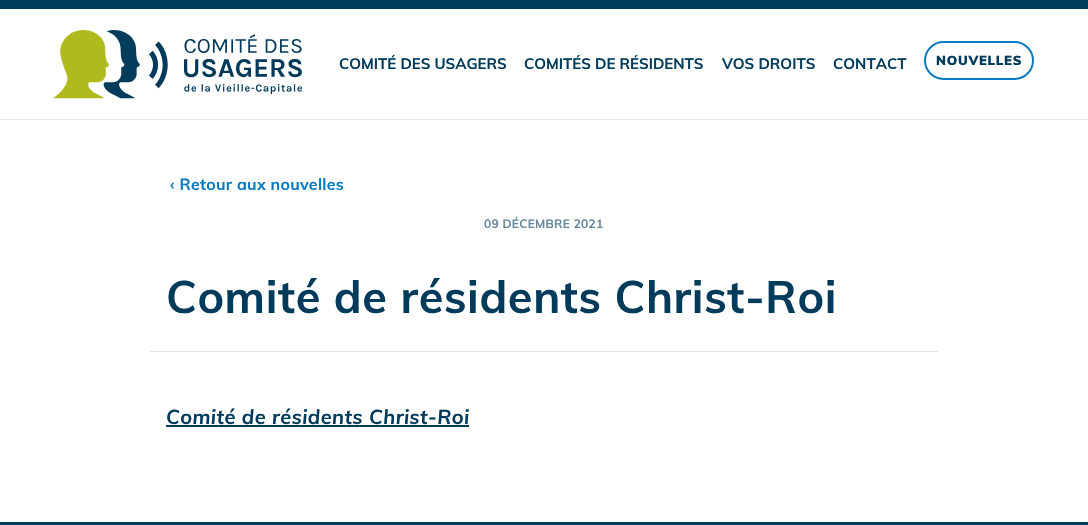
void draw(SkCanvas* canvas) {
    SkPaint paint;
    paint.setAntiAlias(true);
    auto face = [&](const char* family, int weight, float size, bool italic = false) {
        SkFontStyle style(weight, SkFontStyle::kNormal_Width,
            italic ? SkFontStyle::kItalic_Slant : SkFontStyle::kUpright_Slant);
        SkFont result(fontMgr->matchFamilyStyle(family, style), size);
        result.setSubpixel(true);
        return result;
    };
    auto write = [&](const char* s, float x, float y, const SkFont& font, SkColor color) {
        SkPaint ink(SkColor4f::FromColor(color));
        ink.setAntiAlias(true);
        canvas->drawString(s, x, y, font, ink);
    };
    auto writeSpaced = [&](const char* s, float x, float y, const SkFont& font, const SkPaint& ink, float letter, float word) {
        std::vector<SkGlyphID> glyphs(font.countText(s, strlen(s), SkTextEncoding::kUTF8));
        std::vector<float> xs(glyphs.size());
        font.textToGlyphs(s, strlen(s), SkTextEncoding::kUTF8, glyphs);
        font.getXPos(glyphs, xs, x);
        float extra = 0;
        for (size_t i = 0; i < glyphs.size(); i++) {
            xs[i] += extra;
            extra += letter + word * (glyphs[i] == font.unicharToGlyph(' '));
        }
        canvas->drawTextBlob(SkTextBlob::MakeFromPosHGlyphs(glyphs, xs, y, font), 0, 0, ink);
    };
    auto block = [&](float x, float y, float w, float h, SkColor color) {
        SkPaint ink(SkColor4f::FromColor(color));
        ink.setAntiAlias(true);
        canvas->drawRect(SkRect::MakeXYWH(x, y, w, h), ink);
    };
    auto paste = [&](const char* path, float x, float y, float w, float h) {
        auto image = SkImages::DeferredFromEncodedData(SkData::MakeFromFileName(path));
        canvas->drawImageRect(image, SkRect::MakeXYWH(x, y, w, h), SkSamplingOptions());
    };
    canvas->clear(SK_ColorWHITE);
    block(0, 0, 1088, 9, SkColorSetRGB(0, 59, 92));
    block(0, 119, 1088, 1, SkColorSetRGB(232, 232, 232));
    paste("pic1.png", 54, 30, 248, 69);
    auto kFont1 = face("Muli", 700, 15);
    write("COMITÉ DES USAGERS", 339, 69, kFont1, SkColorSetRGB(0, 59, 92));
    write("COMITÉS DE RÉSIDENTS", 524, 69, kFont1, SkColorSetRGB(0, 59, 92));
    write("VOS DROITS", 722, 69, kFont1, SkColorSetRGB(0, 59, 92));
    write("CONTACT", 833, 69, kFont1, SkColorSetRGB(0, 59, 92));
    paint.setStyle(SkPaint::kStroke_Style);
    paint.setStrokeWidth(2);
    paint.setColor(SkColorSetRGB(10, 123, 194));
    canvas->drawRoundRect(SkRect::MakeXYWH(925, 42, 108, 37), 18.5f, 18.5f, paint);
    auto kFont2 = face("Muli", 900, 13);
    paint.setStyle(SkPaint::kFill_Style);
    paint.setColor(SkColorSetRGB(0, 59, 92));
    writeSpaced("NOUVELLES", 936, 65, kFont2, paint, 0.75f, 0);
    auto kFont3 = face("Muli", 700, 16);
    paint.setColor(SkColorSetRGB(10, 123, 194));
    writeSpaced("‹ Retour aux nouvelles", 170, 190, kFont3, paint, 0.25f, 0);
    auto kFont4 = face("Muli", 700, 12);
    paint.setColor(SkColorSetRGB(102, 137, 157));
    writeSpaced("09 DÉCEMBRE 2021", 484, 228, kFont4, paint, 0.25f, 0);
    auto kFont5 = face("Muli", 700, 45);
    paint.setColor(SkColorSetRGB(0, 59, 92));
    writeSpaced("Comité de résidents Christ-Roi", 166, 313, kFont5, paint, 0.6f, 0);
    block(150, 351, 788, 1, SkColorSetRGB(225, 226, 227));
    auto kFont6 = face("Muli", 700, 20, true);
    writeSpaced("Comité de résidents Christ-Roi", 166, 424, kFont6, paint, 0.45f, 0);
    block(166, 425, 303, 2, SkColorSetRGB(0, 59, 92));
    block(0, 522, 1088, 3, SkColorSetRGB(0, 57, 90));
}
